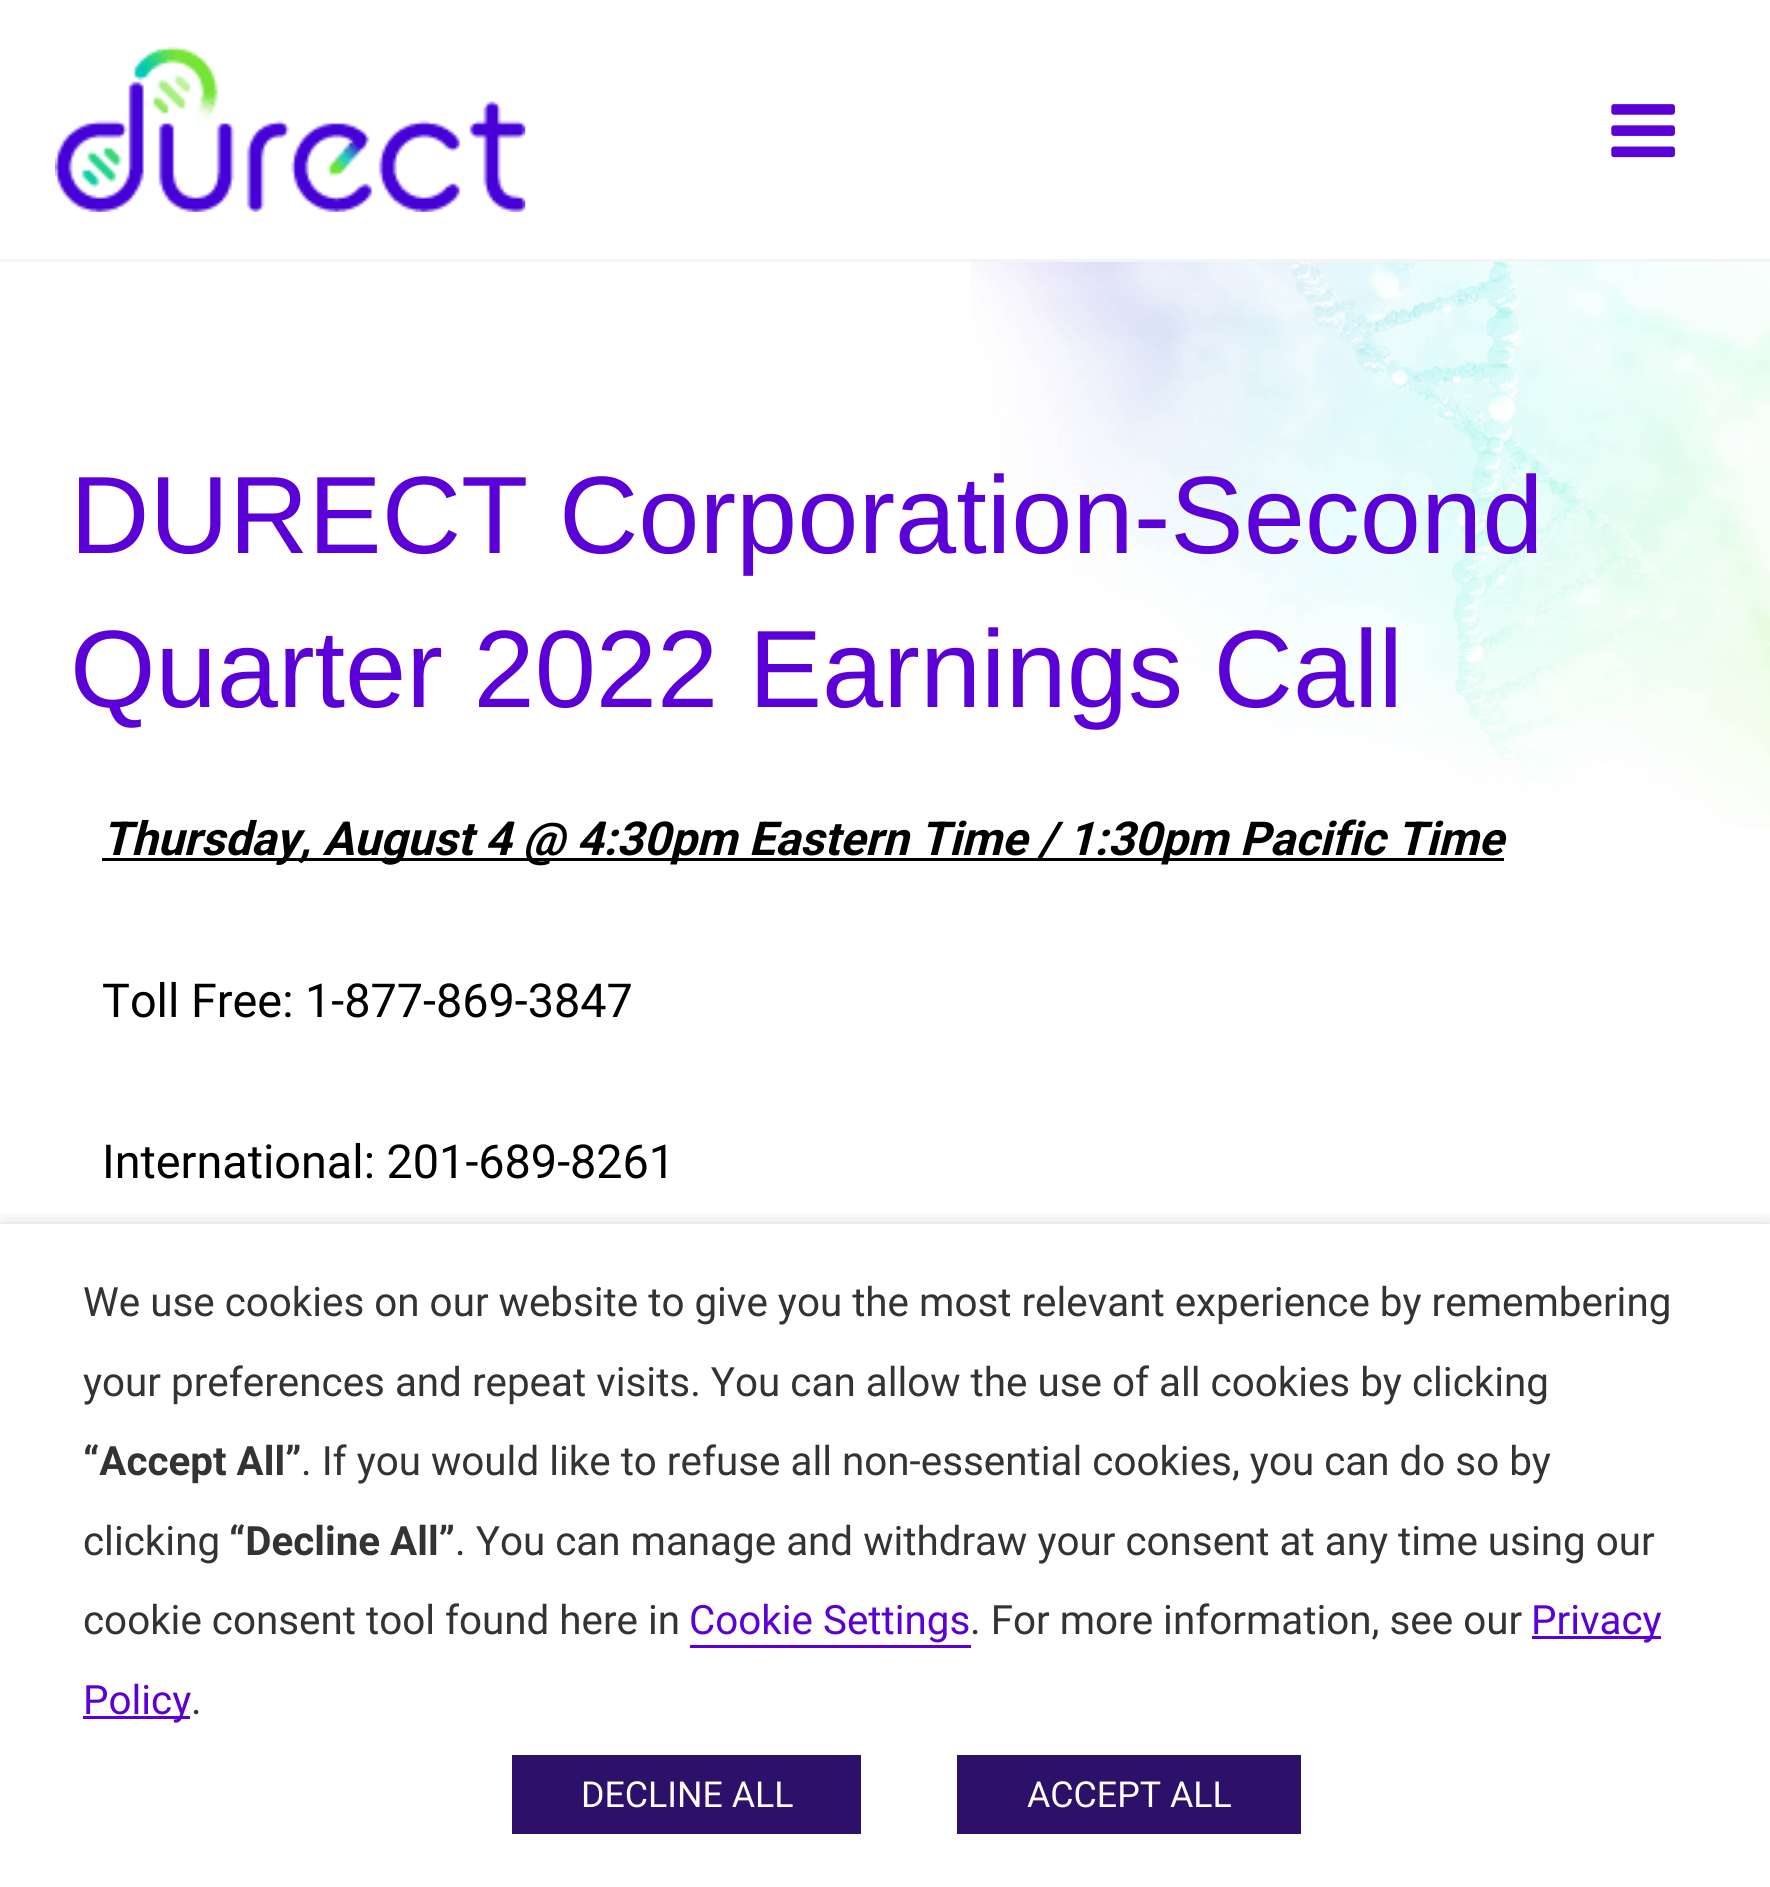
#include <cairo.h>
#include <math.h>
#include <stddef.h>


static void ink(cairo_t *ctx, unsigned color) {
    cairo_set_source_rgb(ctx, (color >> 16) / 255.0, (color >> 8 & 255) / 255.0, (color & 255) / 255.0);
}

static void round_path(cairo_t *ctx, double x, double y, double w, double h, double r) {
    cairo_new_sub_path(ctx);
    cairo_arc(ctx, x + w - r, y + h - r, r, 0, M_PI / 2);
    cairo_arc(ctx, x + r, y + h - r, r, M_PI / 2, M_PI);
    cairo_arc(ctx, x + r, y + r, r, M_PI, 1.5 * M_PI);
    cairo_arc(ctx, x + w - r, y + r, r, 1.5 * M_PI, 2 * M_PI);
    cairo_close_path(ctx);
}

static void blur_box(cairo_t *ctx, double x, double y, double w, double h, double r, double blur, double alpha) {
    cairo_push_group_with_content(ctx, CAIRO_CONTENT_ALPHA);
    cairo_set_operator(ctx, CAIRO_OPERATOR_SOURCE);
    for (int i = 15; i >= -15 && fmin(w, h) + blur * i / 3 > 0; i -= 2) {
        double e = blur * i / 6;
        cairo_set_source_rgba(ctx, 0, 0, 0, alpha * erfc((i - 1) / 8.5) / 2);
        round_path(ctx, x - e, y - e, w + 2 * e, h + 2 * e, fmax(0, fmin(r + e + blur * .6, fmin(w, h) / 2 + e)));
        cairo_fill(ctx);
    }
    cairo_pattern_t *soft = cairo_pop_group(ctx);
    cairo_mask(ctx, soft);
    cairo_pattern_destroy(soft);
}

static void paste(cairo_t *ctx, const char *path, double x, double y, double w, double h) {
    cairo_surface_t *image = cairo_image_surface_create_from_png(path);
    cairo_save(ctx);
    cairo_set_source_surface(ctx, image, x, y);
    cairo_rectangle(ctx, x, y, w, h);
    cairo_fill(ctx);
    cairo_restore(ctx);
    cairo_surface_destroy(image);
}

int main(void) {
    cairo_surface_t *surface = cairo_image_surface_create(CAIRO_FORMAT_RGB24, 1770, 1887);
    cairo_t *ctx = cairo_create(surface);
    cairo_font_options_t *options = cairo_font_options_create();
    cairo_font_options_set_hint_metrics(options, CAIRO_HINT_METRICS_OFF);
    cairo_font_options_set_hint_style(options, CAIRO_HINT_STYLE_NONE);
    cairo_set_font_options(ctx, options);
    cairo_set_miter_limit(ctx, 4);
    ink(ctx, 0xFFFFFF);
    cairo_paint(ctx);
    ink(ctx, 0xF2F5F7);
    cairo_rectangle(ctx, 0, 259, 1770, 3);
    cairo_fill(ctx);
    paste(ctx, "media/1.png", 55, 46, 471, 166);
    paste(ctx, "media/2.png", 1611, 104, 64, 54);
    paste(ctx, "media/3.png", 971, 262, 799, 567);
    cairo_select_font_face(ctx, "Liberation Sans", CAIRO_FONT_SLANT_NORMAL, CAIRO_FONT_WEIGHT_NORMAL);
    cairo_set_font_size(ctx, 110);
    ink(ctx, 0x5B00D7);
    cairo_move_to(ctx, 70, 553);
    cairo_show_text(ctx, "DURECT Corporation-Second");
    cairo_move_to(ctx, 70, 707);
    cairo_show_text(ctx, "Quarter 2022 Earnings Call");
    ink(ctx, 0x000000);
    cairo_rectangle(ctx, 102, 858, 1402, 3);
    cairo_fill(ctx);
    cairo_select_font_face(ctx, "Roboto", CAIRO_FONT_SLANT_ITALIC, CAIRO_FONT_WEIGHT_BOLD);
    cairo_set_font_size(ctx, 46.75);
    cairo_move_to(ctx, 102, 855);
    cairo_show_text(ctx, "Thursday, August 4 @ 4:30pm Eastern Time / 1:30pm Pacific Time");
    cairo_select_font_face(ctx, "Roboto", CAIRO_FONT_SLANT_NORMAL, CAIRO_FONT_WEIGHT_NORMAL);
    cairo_move_to(ctx, 102, 1017);
    cairo_show_text(ctx, "Toll Free: 1-877-869-3847");
    cairo_move_to(ctx, 102, 1178);
    cairo_show_text(ctx, "International: 201-689-8261");
    cairo_save(ctx);
    cairo_rectangle(ctx, 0, 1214, 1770, 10);
    cairo_clip(ctx);
    ink(ctx, 0x000000);
    blur_box(ctx, 0, 1238, 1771, 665, 0, 14, 0.5);
    cairo_restore(ctx);
    cairo_set_font_size(ctx, 40.35);
    ink(ctx, 0x333333);
    cairo_move_to(ctx, 83, 1316);
    cairo_show_text(ctx, "We use cookies on our website to give you the most relevant experience by remembering");
    cairo_move_to(ctx, 83, 1396);
    cairo_show_text(ctx, "your preferences and repeat visits. You can allow the use of all cookies by clicking");
    cairo_select_font_face(ctx, "Roboto", CAIRO_FONT_SLANT_NORMAL, CAIRO_FONT_WEIGHT_BOLD);
    cairo_move_to(ctx, 83, 1475);
    cairo_show_text(ctx, "“Accept All”");
    cairo_select_font_face(ctx, "Roboto", CAIRO_FONT_SLANT_NORMAL, CAIRO_FONT_WEIGHT_NORMAL);
    cairo_move_to(ctx, 301, 1475);
    cairo_show_text(ctx, ". If you would like to refuse all non-essential cookies, you can do so by");
    cairo_move_to(ctx, 83, 1555);
    cairo_show_text(ctx, "clicking");
    cairo_select_font_face(ctx, "Roboto", CAIRO_FONT_SLANT_NORMAL, CAIRO_FONT_WEIGHT_BOLD);
    cairo_move_to(ctx, 229, 1555);
    cairo_show_text(ctx, "“Decline All”");
    cairo_select_font_face(ctx, "Roboto", CAIRO_FONT_SLANT_NORMAL, CAIRO_FONT_WEIGHT_NORMAL);
    cairo_move_to(ctx, 455, 1555);
    cairo_show_text(ctx, ". You can manage and withdraw your consent at any time using our");
    cairo_move_to(ctx, 83, 1634);
    cairo_show_text(ctx, "cookie consent tool found here in");
    ink(ctx, 0x5B00D7);
    cairo_move_to(ctx, 689, 1634);
    cairo_show_text(ctx, "Cookie Settings");
    cairo_rectangle(ctx, 690, 1645, 281, 3);
    cairo_fill(ctx);
    ink(ctx, 0x333333);
    cairo_move_to(ctx, 970, 1634);
    cairo_show_text(ctx, ". For more information, see our");
    ink(ctx, 0x5B00D7);
    cairo_rectangle(ctx, 1532, 1636, 129, 3);
    cairo_fill(ctx);
    cairo_move_to(ctx, 1531, 1634);
    cairo_show_text(ctx, "Privacy");
    cairo_rectangle(ctx, 83, 1716, 107, 3);
    cairo_fill(ctx);
    cairo_move_to(ctx, 83, 1714);
    cairo_show_text(ctx, "Policy");
    ink(ctx, 0x333333);
    cairo_move_to(ctx, 191, 1714);
    cairo_show_text(ctx, ".");
    ink(ctx, 0x2D106A);
    cairo_rectangle(ctx, 512, 1755, 349, 79);
    cairo_fill(ctx);
    cairo_set_font_size(ctx, 35.75);
    ink(ctx, 0xFFFFFF);
    cairo_move_to(ctx, 581, 1807);
    cairo_show_text(ctx, "DECLINE ALL");
    ink(ctx, 0x2D106A);
    cairo_rectangle(ctx, 957, 1755, 344, 79);
    cairo_fill(ctx);
    ink(ctx, 0xFFFFFF);
    cairo_move_to(ctx, 1027, 1807);
    cairo_show_text(ctx, "ACCEPT ALL");
    cairo_surface_write_to_png(surface, "image.png");
    cairo_font_options_destroy(options);
    cairo_destroy(ctx);
    cairo_surface_destroy(surface);
    return 0;
}
